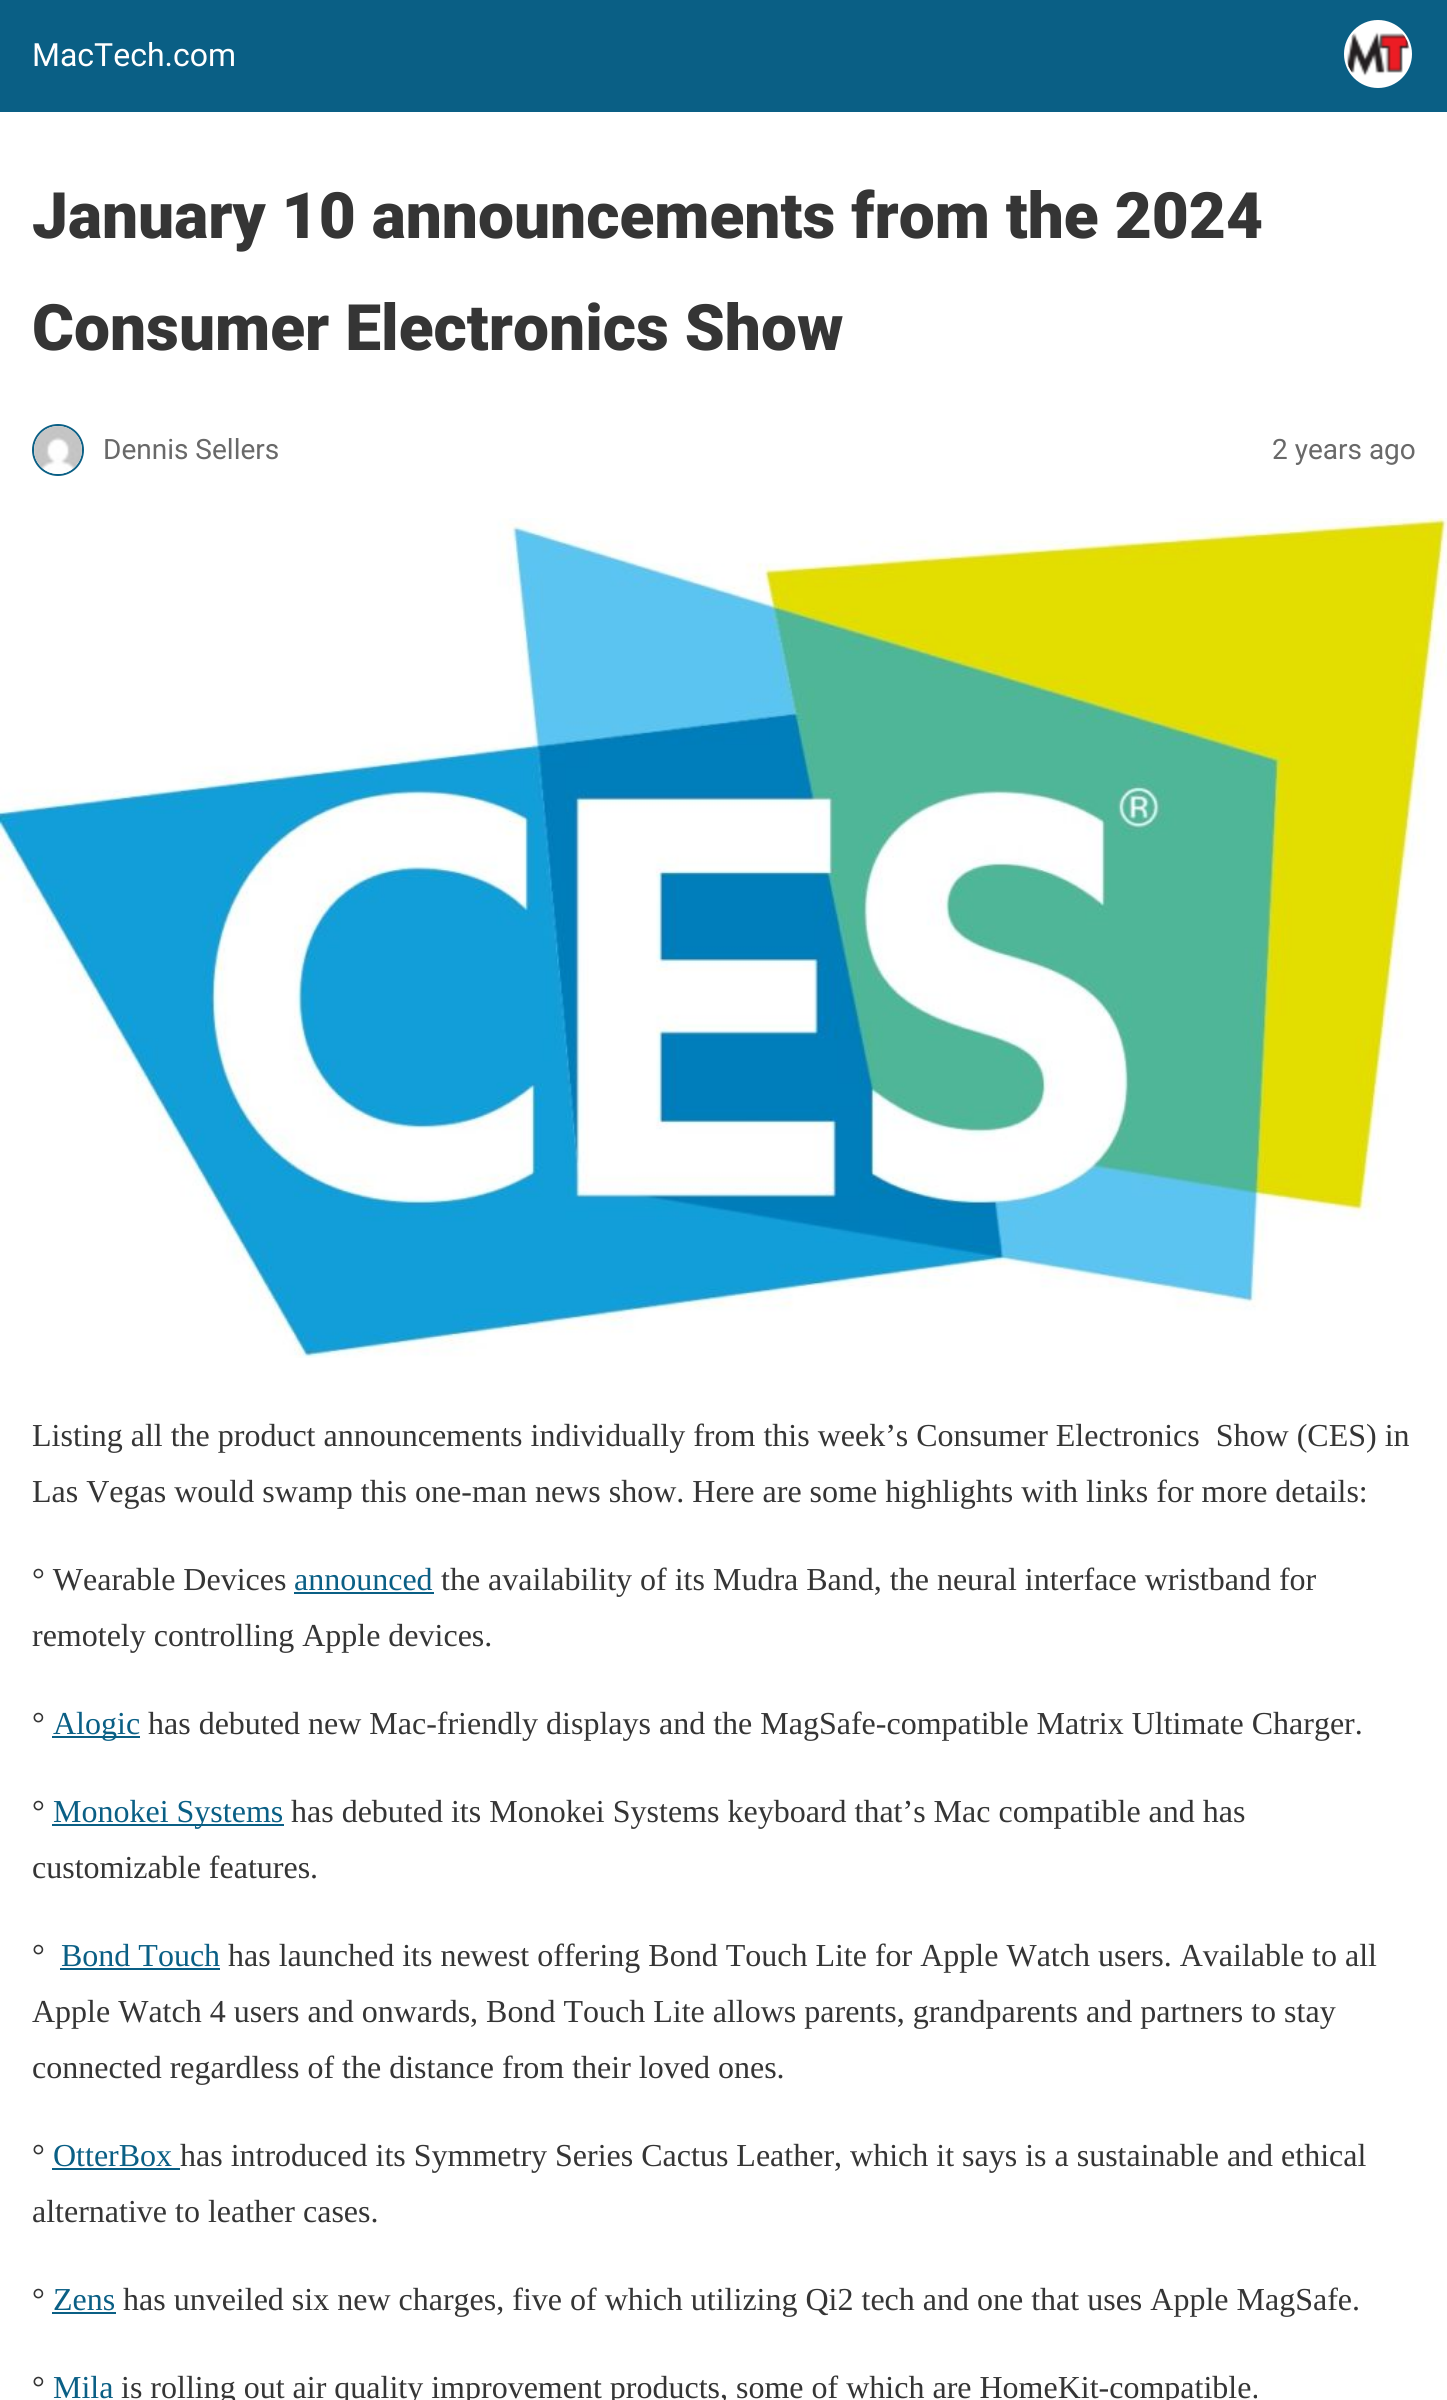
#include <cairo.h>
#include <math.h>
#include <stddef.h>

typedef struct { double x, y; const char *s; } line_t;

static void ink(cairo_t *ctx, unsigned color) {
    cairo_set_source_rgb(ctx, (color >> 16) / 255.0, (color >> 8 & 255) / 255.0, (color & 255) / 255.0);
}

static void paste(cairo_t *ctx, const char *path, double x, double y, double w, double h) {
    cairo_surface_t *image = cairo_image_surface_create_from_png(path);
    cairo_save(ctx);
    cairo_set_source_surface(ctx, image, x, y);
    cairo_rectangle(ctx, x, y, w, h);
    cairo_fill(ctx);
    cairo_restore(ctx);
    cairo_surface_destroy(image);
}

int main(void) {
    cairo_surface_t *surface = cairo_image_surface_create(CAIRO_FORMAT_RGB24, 1447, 2400);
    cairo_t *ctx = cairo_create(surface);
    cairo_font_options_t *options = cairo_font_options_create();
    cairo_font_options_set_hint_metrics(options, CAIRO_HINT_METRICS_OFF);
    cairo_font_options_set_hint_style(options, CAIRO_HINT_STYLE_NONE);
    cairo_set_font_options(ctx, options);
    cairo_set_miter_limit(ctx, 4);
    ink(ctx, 0xFFFFFF);
    cairo_paint(ctx);
    ink(ctx, 0x0A5F85);
    cairo_rectangle(ctx, 0, 0, 1447, 112);
    cairo_fill(ctx);
    cairo_select_font_face(ctx, "Roboto", CAIRO_FONT_SLANT_NORMAL, CAIRO_FONT_WEIGHT_NORMAL);
    cairo_set_font_size(ctx, 32);
    ink(ctx, 0xFFFFFF);
    cairo_move_to(ctx, 32, 66);
    cairo_show_text(ctx, "MacTech.com");
    cairo_new_path(ctx);
    cairo_arc(ctx, 1378, 54, 33, 0, 2 * M_PI);
    cairo_fill_preserve(ctx);
    cairo_stroke(ctx);
    paste(ctx, "media/1.png", 1347, 32, 63, 44);
    cairo_select_font_face(ctx, "Roboto Black", CAIRO_FONT_SLANT_NORMAL, CAIRO_FONT_WEIGHT_NORMAL);
    cairo_set_font_size(ctx, 64);
    ink(ctx, 0x353535);
    cairo_move_to(ctx, 32, 238);
    cairo_show_text(ctx, "January 10 announcements from the 2024");
    cairo_move_to(ctx, 32, 350);
    cairo_show_text(ctx, "Consumer Electronics Show");
    cairo_new_path(ctx);
    cairo_arc(ctx, 58, 450, 25, 0, 2 * M_PI);
    ink(ctx, 0x0A5F85);
    cairo_stroke(ctx);
    paste(ctx, "media/2.png", 34, 426, 48, 48);
    cairo_select_font_face(ctx, "Roboto", CAIRO_FONT_SLANT_NORMAL, CAIRO_FONT_WEIGHT_NORMAL);
    cairo_set_font_size(ctx, 28);
    ink(ctx, 0x696969);
    cairo_move_to(ctx, 103, 459);
    cairo_show_text(ctx, "Dennis Sellers");
    cairo_move_to(ctx, 1272, 459);
    cairo_show_text(ctx, "2 years ago");
    paste(ctx, "media/3.png", 0, 518, 1447, 840);
    cairo_select_font_face(ctx, "Liberation Serif", CAIRO_FONT_SLANT_NORMAL, CAIRO_FONT_WEIGHT_NORMAL);
    cairo_set_font_size(ctx, 32);
    ink(ctx, 0x353535);
    {
        static const line_t items[] = {
            {32, 1446, "Listing all the product announcements individually from this week’s Consumer Electronics  Show (CES) in"},
            {32, 1502, "Las Vegas would swamp this one-man news show. Here are some highlights with links for more details:"},
            {32, 1590, "° Wearable Devices"},
        };
        for (size_t i = 0; i < sizeof items / sizeof *items; i++) {
            cairo_move_to(ctx, items[i].x, items[i].y);
            cairo_show_text(ctx, items[i].s);
        }
    }
    ink(ctx, 0x0A5F85);
    cairo_move_to(ctx, 294, 1590);
    cairo_show_text(ctx, "announced");
    cairo_rectangle(ctx, 294, 1592, 140, 2);
    cairo_fill(ctx);
    ink(ctx, 0x353535);
    {
        static const line_t items[] = {
            {441, 1590, "the availability of its Mudra Band, the neural interface wristband for"},
            {32, 1646, "remotely controlling Apple devices."},
            {32, 1734, "°"},
        };
        for (size_t i = 0; i < sizeof items / sizeof *items; i++) {
            cairo_move_to(ctx, items[i].x, items[i].y);
            cairo_show_text(ctx, items[i].s);
        }
    }
    ink(ctx, 0x0A5F85);
    cairo_rectangle(ctx, 52, 1736, 88, 2);
    cairo_fill(ctx);
    cairo_move_to(ctx, 53, 1734);
    cairo_show_text(ctx, "Alogic");
    ink(ctx, 0x353535);
    cairo_move_to(ctx, 148, 1734);
    cairo_show_text(ctx, "has debuted new Mac-friendly displays and the MagSafe-compatible Matrix Ultimate Charger.");
    cairo_move_to(ctx, 32, 1822);
    cairo_show_text(ctx, "°");
    ink(ctx, 0x0A5F85);
    cairo_rectangle(ctx, 52, 1824, 232, 2);
    cairo_fill(ctx);
    cairo_move_to(ctx, 53, 1822);
    cairo_show_text(ctx, "Monokei Systems");
    ink(ctx, 0x353535);
    {
        static const line_t items[] = {
            {291, 1822, "has debuted its Monokei Systems keyboard that’s Mac compatible and has"},
            {32, 1878, "customizable features."},
            {32, 1966, "°"},
        };
        for (size_t i = 0; i < sizeof items / sizeof *items; i++) {
            cairo_move_to(ctx, items[i].x, items[i].y);
            cairo_show_text(ctx, items[i].s);
        }
    }
    ink(ctx, 0x0A5F85);
    cairo_move_to(ctx, 61, 1966);
    cairo_show_text(ctx, "Bond Touch");
    cairo_rectangle(ctx, 60, 1968, 160, 2);
    cairo_fill(ctx);
    ink(ctx, 0x353535);
    {
        static const line_t items[] = {
            {228, 1966, "has launched its newest offering Bond Touch Lite for Apple Watch users. Available to all"},
            {32, 2022, "Apple Watch 4 users and onwards, Bond Touch Lite allows parents, grandparents and partners to stay"},
            {32, 2078, "connected regardless of the distance from their loved ones."},
            {32, 2166, "°"},
        };
        for (size_t i = 0; i < sizeof items / sizeof *items; i++) {
            cairo_move_to(ctx, items[i].x, items[i].y);
            cairo_show_text(ctx, items[i].s);
        }
    }
    ink(ctx, 0x0A5F85);
    cairo_move_to(ctx, 53, 2166);
    cairo_show_text(ctx, "OtterBox");
    cairo_rectangle(ctx, 52, 2168, 128, 2);
    cairo_fill(ctx);
    ink(ctx, 0x353535);
    {
        static const line_t items[] = {
            {180, 2166, "has introduced its Symmetry Series Cactus Leather, which it says is a sustainable and ethical"},
            {32, 2222, "alternative to leather cases."},
            {32, 2310, "°"},
        };
        for (size_t i = 0; i < sizeof items / sizeof *items; i++) {
            cairo_move_to(ctx, items[i].x, items[i].y);
            cairo_show_text(ctx, items[i].s);
        }
    }
    ink(ctx, 0x0A5F85);
    cairo_move_to(ctx, 53, 2310);
    cairo_show_text(ctx, "Zens");
    cairo_rectangle(ctx, 52, 2312, 64, 2);
    cairo_fill(ctx);
    ink(ctx, 0x353535);
    cairo_move_to(ctx, 123, 2310);
    cairo_show_text(ctx, "has unveiled six new charges, five of which utilizing Qi2 tech and one that uses Apple MagSafe.");
    cairo_move_to(ctx, 32, 2398);
    cairo_show_text(ctx, "°");
    ink(ctx, 0x0A5F85);
    cairo_move_to(ctx, 53, 2398);
    cairo_show_text(ctx, "Mila");
    ink(ctx, 0x353535);
    cairo_move_to(ctx, 121, 2398);
    cairo_show_text(ctx, "is rolling out air quality improvement products, some of which are HomeKit-compatible.");
    cairo_surface_write_to_png(surface, "image.png");
    cairo_font_options_destroy(options);
    cairo_destroy(ctx);
    cairo_surface_destroy(surface);
    return 0;
}
